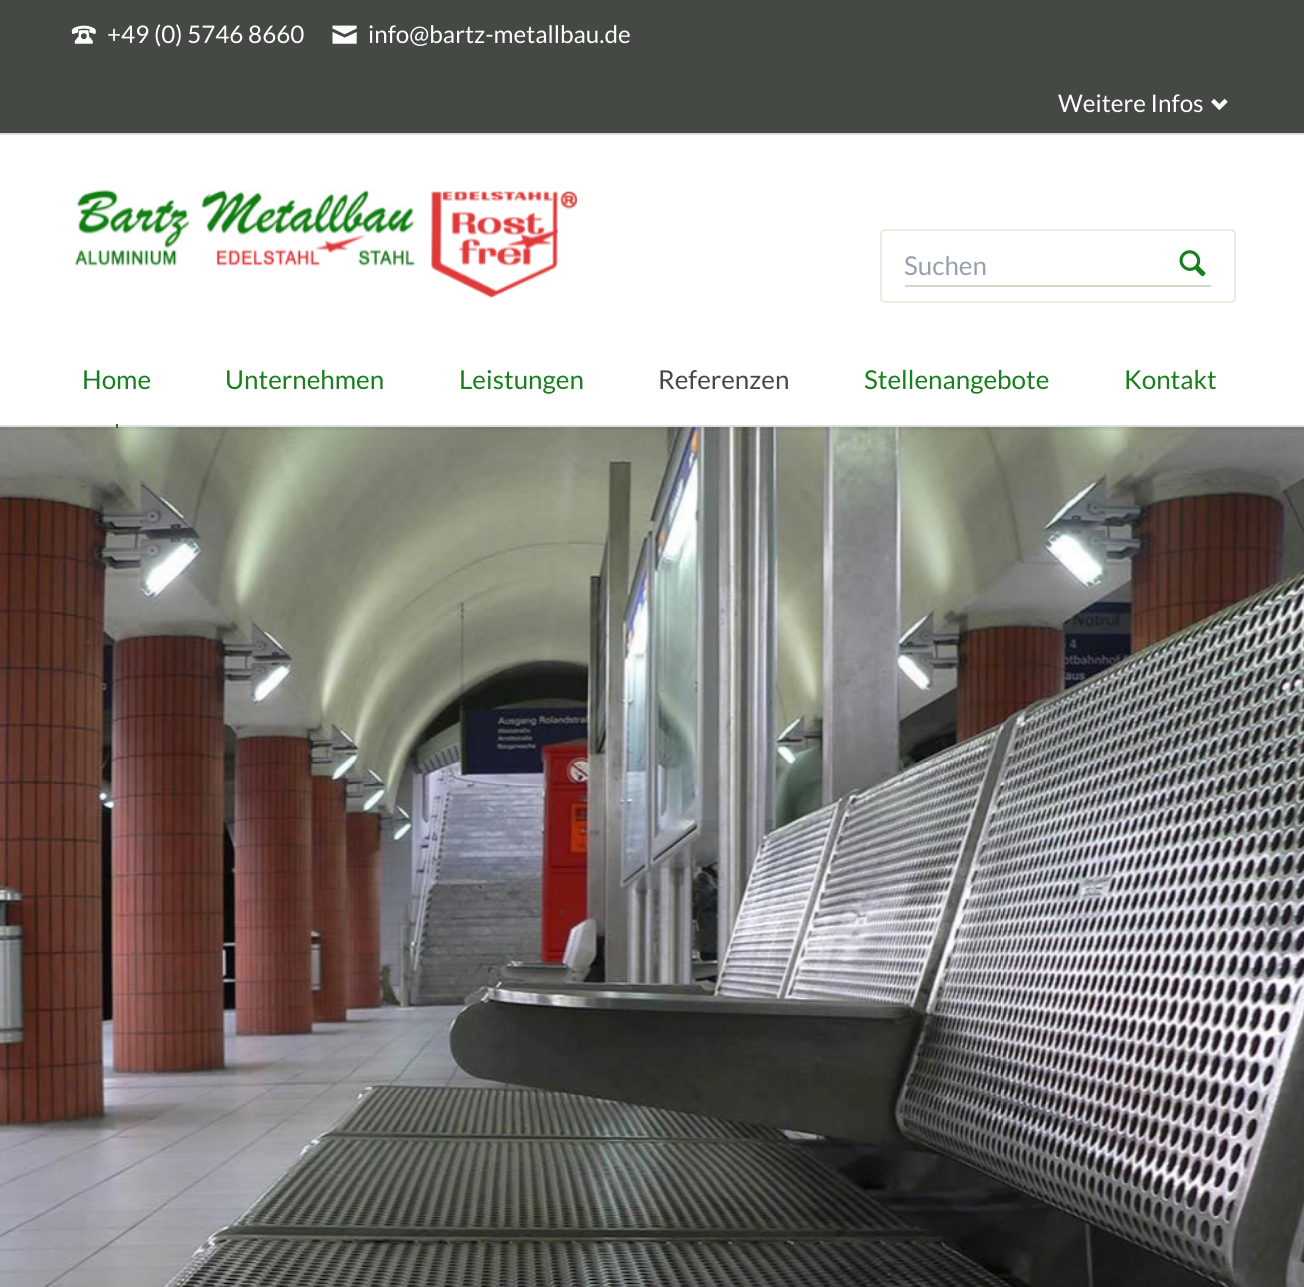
#include <cairo.h>
#include <math.h>
#include <stddef.h>


static void ink(cairo_t *ctx, unsigned color) {
    cairo_set_source_rgb(ctx, (color >> 16) / 255.0, (color >> 8 & 255) / 255.0, (color & 255) / 255.0);
}

static void round_path(cairo_t *ctx, double x, double y, double w, double h, double r) {
    cairo_new_sub_path(ctx);
    cairo_arc(ctx, x + w - r, y + h - r, r, 0, M_PI / 2);
    cairo_arc(ctx, x + r, y + h - r, r, M_PI / 2, M_PI);
    cairo_arc(ctx, x + r, y + r, r, M_PI, 1.5 * M_PI);
    cairo_arc(ctx, x + w - r, y + r, r, 1.5 * M_PI, 2 * M_PI);
    cairo_close_path(ctx);
}

static void blur_box(cairo_t *ctx, double x, double y, double w, double h, double r, double blur, double alpha) {
    cairo_push_group_with_content(ctx, CAIRO_CONTENT_ALPHA);
    cairo_set_operator(ctx, CAIRO_OPERATOR_SOURCE);
    for (int i = 15; i >= -15 && fmin(w, h) + blur * i / 3 > 0; i -= 2) {
        double e = blur * i / 6;
        cairo_set_source_rgba(ctx, 0, 0, 0, alpha * erfc((i - 1) / 8.5) / 2);
        round_path(ctx, x - e, y - e, w + 2 * e, h + 2 * e, fmax(0, fmin(r + e + blur * .6, fmin(w, h) / 2 + e)));
        cairo_fill(ctx);
    }
    cairo_pattern_t *soft = cairo_pop_group(ctx);
    cairo_mask(ctx, soft);
    cairo_pattern_destroy(soft);
}

static void paste(cairo_t *ctx, const char *path, double x, double y, double w, double h) {
    cairo_surface_t *image = cairo_image_surface_create_from_png(path);
    cairo_save(ctx);
    cairo_set_source_surface(ctx, image, x, y);
    cairo_rectangle(ctx, x, y, w, h);
    cairo_fill(ctx);
    cairo_restore(ctx);
    cairo_surface_destroy(image);
}

int main(void) {
    cairo_surface_t *surface = cairo_image_surface_create(CAIRO_FORMAT_RGB24, 1304, 1287);
    cairo_t *ctx = cairo_create(surface);
    cairo_font_options_t *options = cairo_font_options_create();
    cairo_font_options_set_hint_metrics(options, CAIRO_HINT_METRICS_OFF);
    cairo_font_options_set_hint_style(options, CAIRO_HINT_STYLE_NONE);
    cairo_set_font_options(ctx, options);
    cairo_set_miter_limit(ctx, 4);
    ink(ctx, 0xFFFFFF);
    cairo_paint(ctx);
    ink(ctx, 0x444943);
    cairo_rectangle(ctx, 0, 0, 1304, 133);
    cairo_fill(ctx);
    ink(ctx, 0xDEDEDE);
    cairo_rectangle(ctx, 0, 133, 1304, 2);
    cairo_fill(ctx);
    paste(ctx, "media/1.png", 71, 25, 25, 19);
    cairo_select_font_face(ctx, "Lato", CAIRO_FONT_SLANT_NORMAL, CAIRO_FONT_WEIGHT_NORMAL);
    cairo_set_font_size(ctx, 24.25);
    ink(ctx, 0xFFFFFF);
    cairo_move_to(ctx, 107, 43);
    cairo_show_text(ctx, "+49 (0) 5746 8660");
    paste(ctx, "media/2.png", 332, 25, 25, 19);
    cairo_move_to(ctx, 368, 43);
    cairo_show_text(ctx, "info@bartz-metallbau.de");
    cairo_move_to(ctx, 1058, 112);
    cairo_show_text(ctx, "Weitere Infos");
    paste(ctx, "media/3.png", 1211, 98, 17, 13);
    paste(ctx, "media/6.png", 0, 427, 1304, 860);
    cairo_save(ctx);
    cairo_rectangle(ctx, 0, 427, 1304, 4);
    cairo_clip(ctx);
    ink(ctx, 0x000000);
    blur_box(ctx, 0, 137, 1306, 292, 0, 2, 0.1);
    cairo_restore(ctx);
    ink(ctx, 0xDEDEDE);
    cairo_rectangle(ctx, 0, 425, 1304, 2);
    cairo_fill(ctx);
    paste(ctx, "media/4.png", 75, 189, 503, 109);
    round_path(ctx, 881, 230, 354, 72, 4);
    ink(ctx, 0xE8EDDE);
    cairo_stroke(ctx);
    ink(ctx, 0xD4DAC8);
    cairo_rectangle(ctx, 905, 285, 306, 2);
    cairo_fill(ctx);
    cairo_set_font_size(ctx, 26);
    ink(ctx, 0x98A0AB);
    cairo_move_to(ctx, 904, 275);
    cairo_show_text(ctx, "Suchen");
    paste(ctx, "media/5.png", 1179, 250, 27, 27);
    ink(ctx, 0x197E1D);
    cairo_move_to(ctx, 82, 389);
    cairo_show_text(ctx, "Home");
    cairo_rectangle(ctx, 116, 424, 2, 4);
    cairo_fill(ctx);
    cairo_move_to(ctx, 225, 389);
    cairo_show_text(ctx, "Unternehmen");
    cairo_move_to(ctx, 459, 389);
    cairo_show_text(ctx, "Leistungen");
    ink(ctx, 0x444943);
    cairo_move_to(ctx, 658, 389);
    cairo_show_text(ctx, "Referenzen");
    ink(ctx, 0x197E1D);
    cairo_move_to(ctx, 864, 389);
    cairo_show_text(ctx, "Stellenangebote");
    cairo_move_to(ctx, 1124, 389);
    cairo_show_text(ctx, "Kontakt");
    cairo_surface_write_to_png(surface, "image.png");
    cairo_font_options_destroy(options);
    cairo_destroy(ctx);
    cairo_surface_destroy(surface);
    return 0;
}
